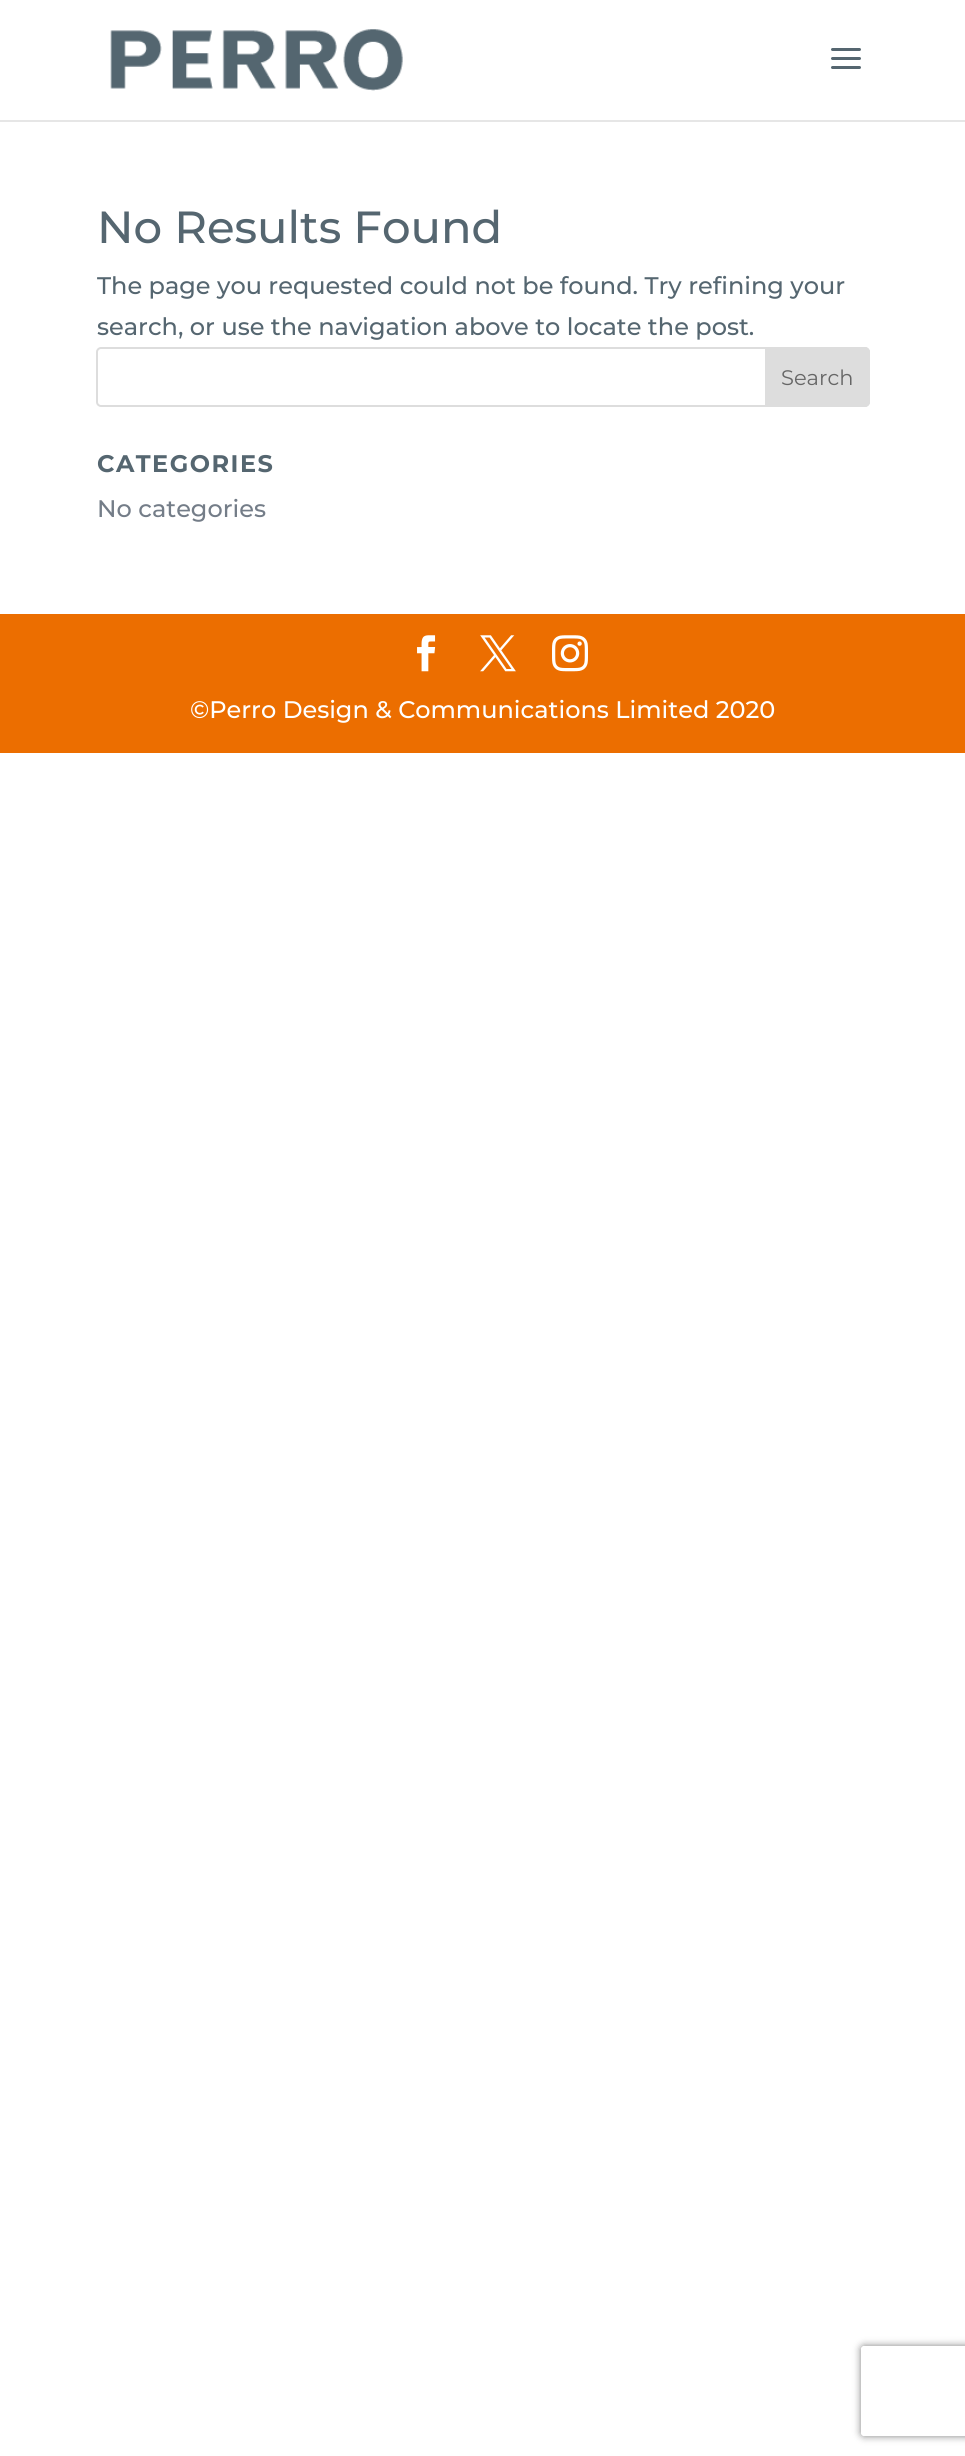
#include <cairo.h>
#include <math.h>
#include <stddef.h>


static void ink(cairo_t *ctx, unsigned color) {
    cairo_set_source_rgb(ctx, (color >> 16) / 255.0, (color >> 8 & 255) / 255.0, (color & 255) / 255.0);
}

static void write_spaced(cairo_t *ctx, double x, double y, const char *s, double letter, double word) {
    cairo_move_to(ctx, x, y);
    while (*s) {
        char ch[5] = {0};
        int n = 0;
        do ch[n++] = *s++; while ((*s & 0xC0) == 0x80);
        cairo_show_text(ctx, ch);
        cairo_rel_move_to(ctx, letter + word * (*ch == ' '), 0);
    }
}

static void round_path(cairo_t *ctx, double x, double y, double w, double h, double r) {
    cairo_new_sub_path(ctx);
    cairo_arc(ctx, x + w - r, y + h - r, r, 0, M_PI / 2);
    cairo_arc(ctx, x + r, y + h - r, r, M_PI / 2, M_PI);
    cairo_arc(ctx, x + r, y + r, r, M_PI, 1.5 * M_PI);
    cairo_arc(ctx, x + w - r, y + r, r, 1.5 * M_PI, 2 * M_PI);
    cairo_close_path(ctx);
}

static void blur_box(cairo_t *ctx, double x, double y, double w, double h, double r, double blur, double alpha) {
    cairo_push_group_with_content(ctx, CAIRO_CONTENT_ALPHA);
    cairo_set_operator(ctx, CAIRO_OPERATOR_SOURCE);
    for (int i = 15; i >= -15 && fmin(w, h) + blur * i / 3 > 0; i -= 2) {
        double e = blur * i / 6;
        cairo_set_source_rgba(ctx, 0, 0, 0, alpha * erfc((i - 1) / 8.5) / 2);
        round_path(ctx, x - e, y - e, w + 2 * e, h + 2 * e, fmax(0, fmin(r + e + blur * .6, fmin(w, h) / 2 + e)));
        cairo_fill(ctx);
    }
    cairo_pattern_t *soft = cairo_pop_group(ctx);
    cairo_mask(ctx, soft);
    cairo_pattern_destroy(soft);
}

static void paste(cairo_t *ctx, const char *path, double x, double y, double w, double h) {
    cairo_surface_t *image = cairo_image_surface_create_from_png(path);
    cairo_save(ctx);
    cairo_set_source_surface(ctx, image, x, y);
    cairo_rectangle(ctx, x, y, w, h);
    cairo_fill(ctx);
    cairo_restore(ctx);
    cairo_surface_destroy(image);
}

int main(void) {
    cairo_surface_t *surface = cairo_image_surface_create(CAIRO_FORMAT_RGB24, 965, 2456);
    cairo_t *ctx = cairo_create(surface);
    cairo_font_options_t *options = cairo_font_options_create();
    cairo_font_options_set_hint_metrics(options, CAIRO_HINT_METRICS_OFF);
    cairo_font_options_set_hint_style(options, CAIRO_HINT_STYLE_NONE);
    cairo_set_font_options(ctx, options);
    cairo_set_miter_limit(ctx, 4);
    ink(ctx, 0xFFFFFF);
    cairo_paint(ctx);
    ink(ctx, 0xE6E6E6);
    cairo_rectangle(ctx, 0, 120, 965, 2);
    cairo_fill(ctx);
    paste(ctx, "media/1.png", 110, 29, 293, 62);
    paste(ctx, "media/2.png", 831, 48, 30, 21);
    cairo_select_font_face(ctx, "Montserrat Medium", CAIRO_FONT_SLANT_NORMAL, CAIRO_FONT_WEIGHT_NORMAL);
    cairo_set_font_size(ctx, 45);
    ink(ctx, 0x556670);
    cairo_move_to(ctx, 97, 243);
    cairo_show_text(ctx, "No Results Found");
    cairo_set_font_size(ctx, 24);
    cairo_move_to(ctx, 97, 294);
    cairo_show_text(ctx, "The page you requested could not be found. Try refining your");
    cairo_move_to(ctx, 97, 335);
    cairo_show_text(ctx, "search, or use the navigation above to locate the post.");
    round_path(ctx, 97, 348, 772, 58, 4);
    ink(ctx, 0xDDDDDD);
    cairo_stroke(ctx);
    cairo_new_path(ctx);
    cairo_move_to(ctx, 766, 348);
    cairo_line_to(ctx, 865, 348);
    cairo_curve_to(ctx, 867, 348, 869, 350, 869, 352);
    cairo_line_to(ctx, 869, 402);
    cairo_curve_to(ctx, 869, 404, 867, 406, 865, 406);
    cairo_line_to(ctx, 766, 406);
    cairo_close_path(ctx);
    cairo_fill_preserve(ctx);
    cairo_stroke(ctx);
    cairo_select_font_face(ctx, "Montserrat", CAIRO_FONT_SLANT_NORMAL, CAIRO_FONT_WEIGHT_NORMAL);
    cairo_set_font_size(ctx, 21);
    ink(ctx, 0x666666);
    cairo_move_to(ctx, 781, 385);
    cairo_show_text(ctx, "Search");
    cairo_select_font_face(ctx, "Montserrat", CAIRO_FONT_SLANT_NORMAL, CAIRO_FONT_WEIGHT_BOLD);
    cairo_set_font_size(ctx, 24);
    ink(ctx, 0x556670);
    write_spaced(ctx, 97, 472, "CATEGORIES", 1.5, 0);
    cairo_select_font_face(ctx, "Montserrat Medium", CAIRO_FONT_SLANT_NORMAL, CAIRO_FONT_WEIGHT_NORMAL);
    ink(ctx, 0x747D88);
    cairo_move_to(ctx, 97, 517);
    cairo_show_text(ctx, "No categories");
    ink(ctx, 0xEC6E00);
    cairo_rectangle(ctx, 0, 614, 965, 139);
    cairo_fill(ctx);
    paste(ctx, "media/3.png", 417, 635, 19, 37);
    paste(ctx, "media/4.png", 480, 635, 36, 37);
    paste(ctx, "media/5.png", 552, 635, 36, 37);
    ink(ctx, 0xFFFFFF);
    cairo_move_to(ctx, 190, 718);
    cairo_show_text(ctx, "©Perro Design & Communications Limited 2020");
    cairo_save(ctx);
    cairo_set_fill_rule(ctx, CAIRO_FILL_RULE_EVEN_ODD);
    cairo_new_path(ctx);
    cairo_move_to(ctx, 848, 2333);
    cairo_line_to(ctx, 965, 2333);
    cairo_line_to(ctx, 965, 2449);
    cairo_line_to(ctx, 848, 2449);
    cairo_close_path(ctx);
    cairo_move_to(ctx, 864, 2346);
    cairo_line_to(ctx, 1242, 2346);
    cairo_curve_to(ctx, 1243.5, 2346, 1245, 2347.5, 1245, 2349);
    cairo_line_to(ctx, 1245, 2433);
    cairo_curve_to(ctx, 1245, 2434.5, 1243.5, 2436, 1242, 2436);
    cairo_line_to(ctx, 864, 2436);
    cairo_curve_to(ctx, 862.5, 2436, 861, 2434.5, 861, 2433);
    cairo_line_to(ctx, 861, 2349);
    cairo_curve_to(ctx, 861, 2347.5, 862.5, 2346, 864, 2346);
    cairo_close_path(ctx);
    cairo_clip(ctx);
    ink(ctx, 0x808080);
    blur_box(ctx, 861, 2346, 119, 90, 3, 4, 1);
    cairo_restore(ctx);
    cairo_surface_write_to_png(surface, "image.png");
    cairo_font_options_destroy(options);
    cairo_destroy(ctx);
    cairo_surface_destroy(surface);
    return 0;
}
